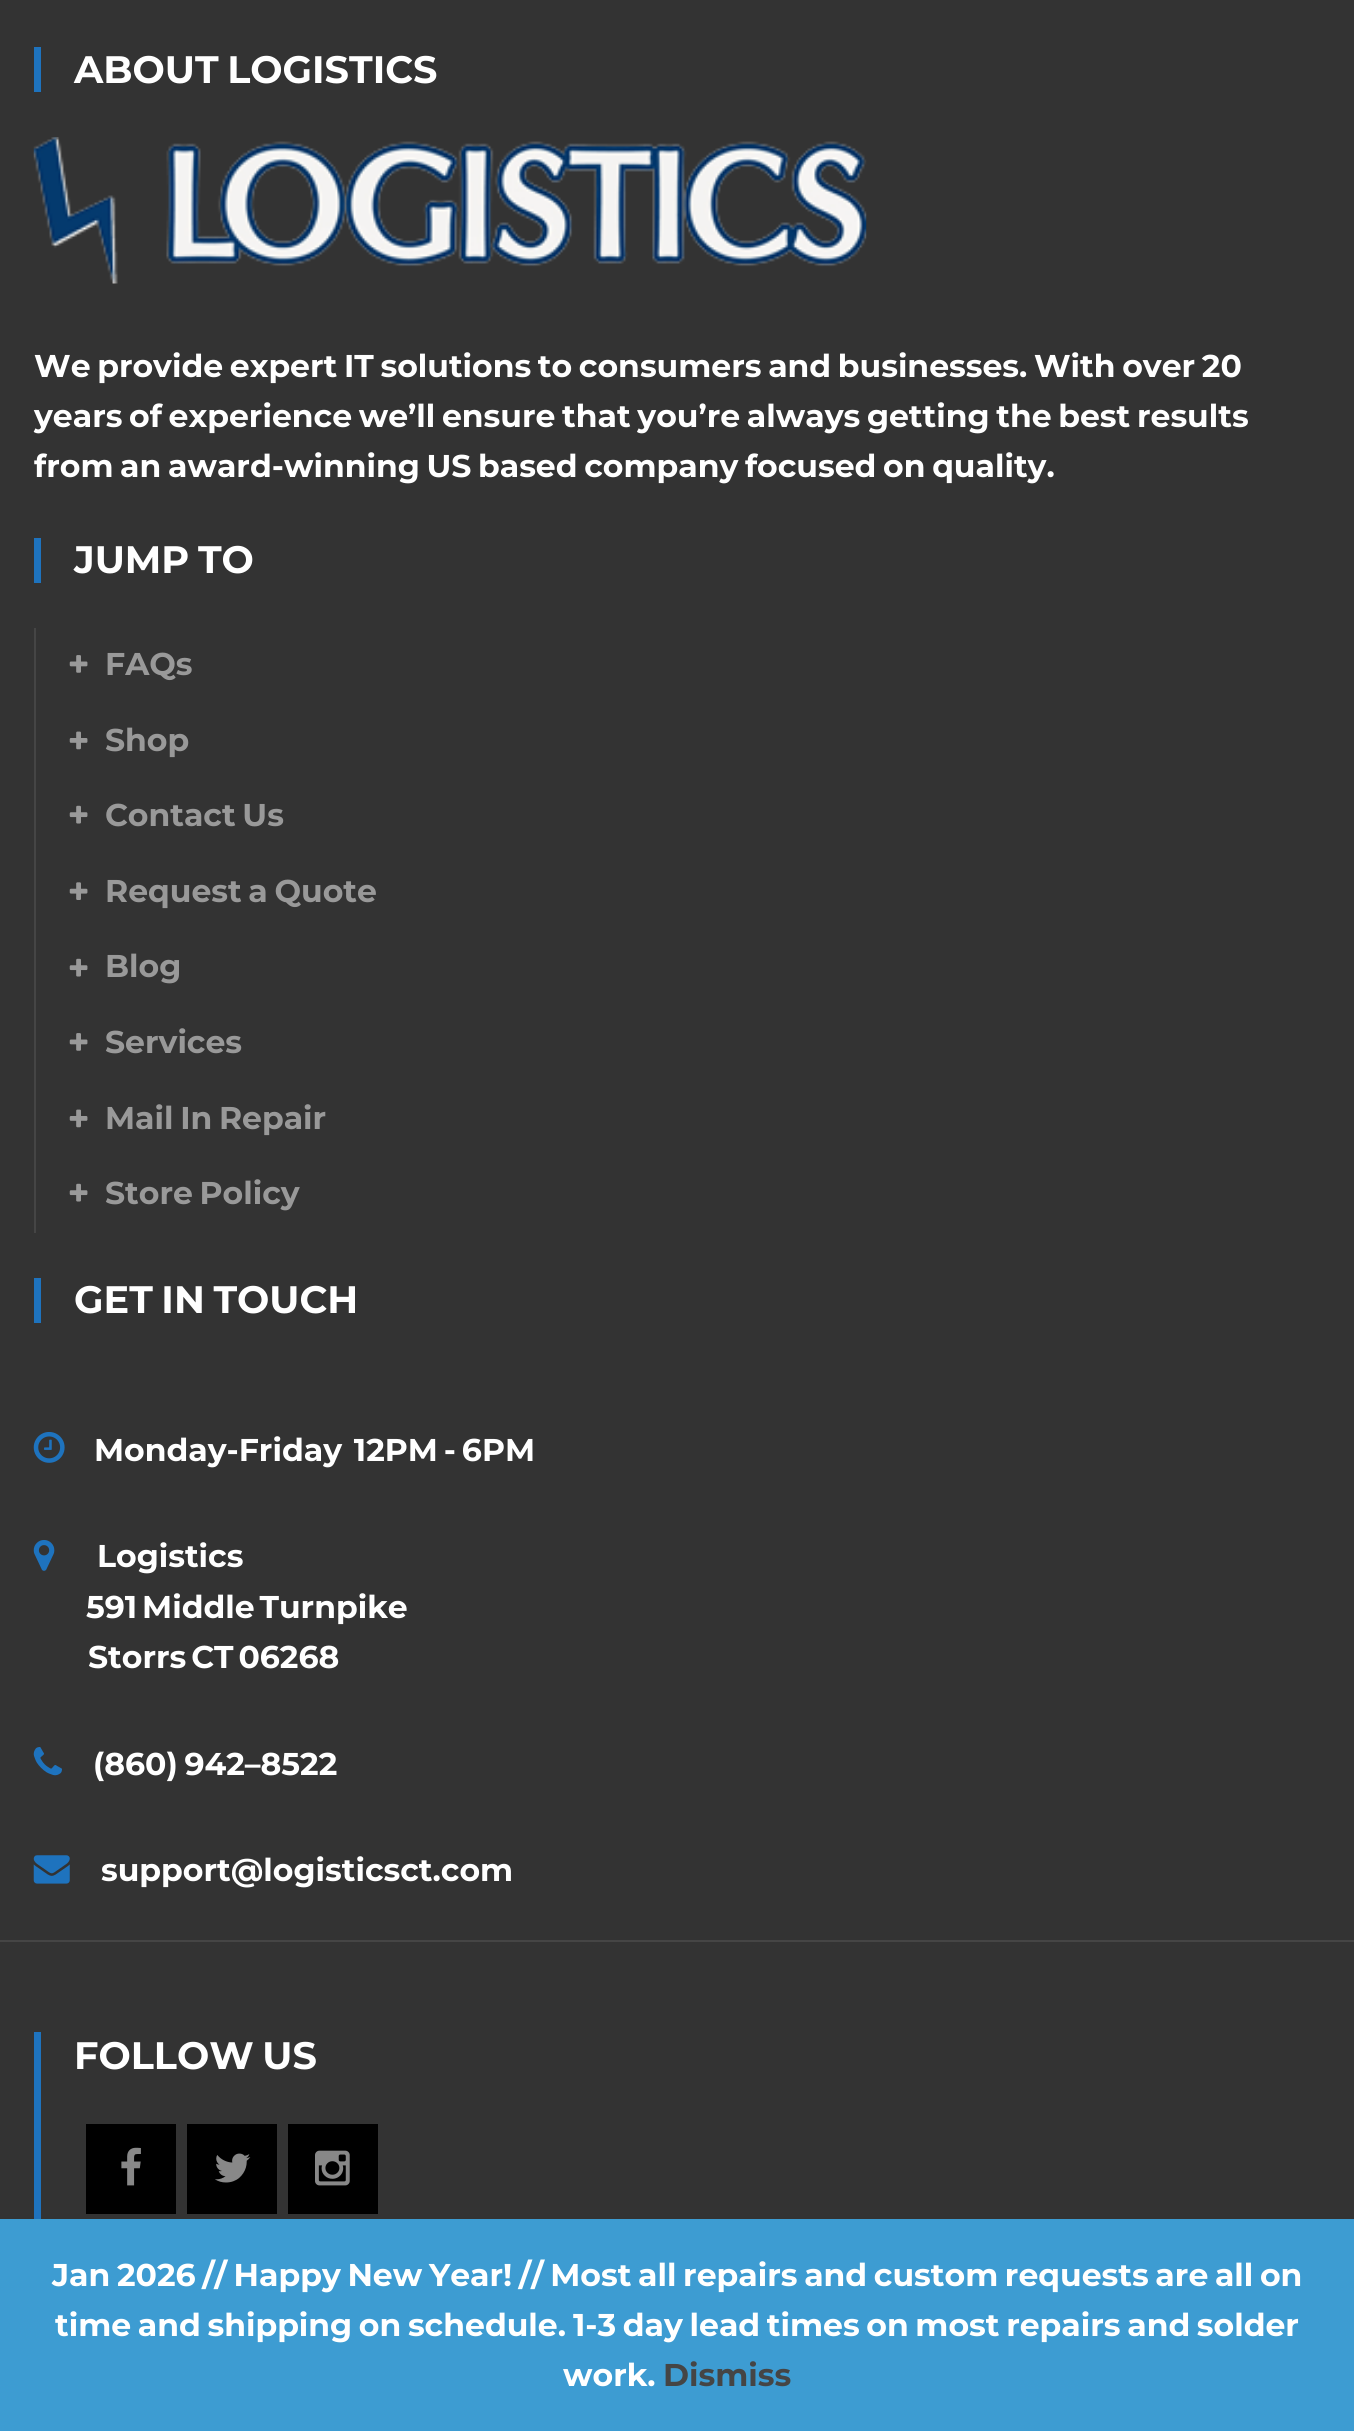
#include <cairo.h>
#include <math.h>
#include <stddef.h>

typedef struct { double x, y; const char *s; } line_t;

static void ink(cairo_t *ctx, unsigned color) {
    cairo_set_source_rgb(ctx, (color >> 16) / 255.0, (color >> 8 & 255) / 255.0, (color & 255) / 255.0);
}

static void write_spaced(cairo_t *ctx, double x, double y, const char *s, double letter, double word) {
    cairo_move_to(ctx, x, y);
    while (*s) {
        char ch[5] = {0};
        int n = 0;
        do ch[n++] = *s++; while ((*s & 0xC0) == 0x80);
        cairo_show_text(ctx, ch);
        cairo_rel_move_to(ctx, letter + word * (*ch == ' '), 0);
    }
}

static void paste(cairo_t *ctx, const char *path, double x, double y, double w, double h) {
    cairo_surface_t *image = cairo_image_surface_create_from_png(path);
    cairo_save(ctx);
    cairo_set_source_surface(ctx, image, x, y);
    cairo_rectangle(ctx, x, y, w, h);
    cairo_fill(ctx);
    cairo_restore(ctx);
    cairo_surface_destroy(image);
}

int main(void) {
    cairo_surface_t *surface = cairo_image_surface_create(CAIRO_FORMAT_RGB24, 1354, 2431);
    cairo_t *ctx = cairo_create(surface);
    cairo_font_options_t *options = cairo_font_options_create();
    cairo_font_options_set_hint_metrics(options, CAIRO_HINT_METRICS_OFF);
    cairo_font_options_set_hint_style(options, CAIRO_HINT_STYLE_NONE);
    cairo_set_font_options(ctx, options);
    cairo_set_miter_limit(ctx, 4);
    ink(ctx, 0x333333);
    cairo_paint(ctx);
    ink(ctx, 0x1E73BE);
    cairo_rectangle(ctx, 34, 47, 7, 45);
    cairo_fill(ctx);
    cairo_select_font_face(ctx, "Montserrat", CAIRO_FONT_SLANT_NORMAL, CAIRO_FONT_WEIGHT_BOLD);
    cairo_set_font_size(ctx, 38.25);
    ink(ctx, 0xFFFFFF);
    write_spaced(ctx, 74, 83, "ABOUT LOGISTICS", 0, -2.25);
    paste(ctx, "media/1.png", 33, 137, 834, 147);
    cairo_set_font_size(ctx, 31.5);
    {
        static const line_t items[] = {
            {34, 377, "We provide expert IT solutions to consumers and businesses. With over 20"},
            {34, 427, "years of experience we’ll ensure that you’re always getting the best results"},
            {34, 477, "from an award-winning US based company focused on quality."},
        };
        for (size_t i = 0; i < sizeof items / sizeof *items; i++) {
            write_spaced(ctx, items[i].x, items[i].y, items[i].s, 0, -2.25);
        }
    }
    ink(ctx, 0x1E73BE);
    cairo_rectangle(ctx, 34, 538, 7, 45);
    cairo_fill(ctx);
    cairo_set_font_size(ctx, 38.25);
    ink(ctx, 0xFFFFFF);
    write_spaced(ctx, 74, 573, "JUMP TO", 0, -2.25);
    ink(ctx, 0x454545);
    cairo_rectangle(ctx, 34, 628, 2, 605);
    cairo_fill(ctx);
    paste(ctx, "media/2.png", 69, 655, 19, 18);
    cairo_set_font_size(ctx, 31.5);
    ink(ctx, 0x999999);
    cairo_move_to(ctx, 105, 675);
    cairo_show_text(ctx, "FAQs");
    paste(ctx, "media/3.png", 69, 731, 19, 19);
    cairo_move_to(ctx, 105, 751);
    cairo_show_text(ctx, "Shop");
    paste(ctx, "media/4.png", 69, 805, 19, 19);
    write_spaced(ctx, 105, 826, "Contact Us", 0, -2.25);
    paste(ctx, "media/5.png", 69, 882, 19, 18);
    write_spaced(ctx, 105, 902, "Request a Quote", 0, -2.25);
    paste(ctx, "media/4.png", 69, 958, 19, 19);
    cairo_move_to(ctx, 105, 977);
    cairo_show_text(ctx, "Blog");
    paste(ctx, "media/2.png", 69, 1033, 19, 18);
    cairo_move_to(ctx, 105, 1053);
    cairo_show_text(ctx, "Services");
    paste(ctx, "media/3.png", 69, 1109, 19, 19);
    write_spaced(ctx, 105, 1129, "Mail In Repair", 0, -2.25);
    paste(ctx, "media/4.png", 69, 1183, 19, 19);
    write_spaced(ctx, 105, 1204, "Store Policy", 0, -2.25);
    ink(ctx, 0x1E73BE);
    cairo_rectangle(ctx, 34, 1278, 7, 45);
    cairo_fill(ctx);
    cairo_set_font_size(ctx, 38.25);
    ink(ctx, 0xFFFFFF);
    write_spaced(ctx, 74, 1313, "GET IN TOUCH", 0, -2.25);
    paste(ctx, "media/6.png", 33, 1432, 32, 31);
    cairo_set_font_size(ctx, 31.5);
    write_spaced(ctx, 94, 1461, "Monday-Friday  12PM - 6PM", 0, -3);
    paste(ctx, "media/7.png", 33, 1540, 22, 31);
    cairo_move_to(ctx, 97, 1567);
    cairo_show_text(ctx, "Logistics");
    write_spaced(ctx, 86, 1618, "591 Middle Turnpike", 0, -4);
    write_spaced(ctx, 88, 1668, "Storrs CT 06268", 0, -4);
    paste(ctx, "media/8.png", 33, 1747, 29, 29);
    write_spaced(ctx, 93, 1775, "(860) 942–8522", 0, -2.25);
    paste(ctx, "media/9.png", 33, 1855, 37, 29);
    cairo_move_to(ctx, 101, 1881);
    cairo_show_text(ctx, "support@logisticsct.com");
    ink(ctx, 0x454545);
    cairo_rectangle(ctx, 0, 1940, 1354, 2);
    cairo_fill(ctx);
    ink(ctx, 0x1E73BE);
    cairo_rectangle(ctx, 34, 2032, 7, 187);
    cairo_fill(ctx);
    cairo_set_font_size(ctx, 38.25);
    ink(ctx, 0xFFFFFF);
    write_spaced(ctx, 74, 2069, "FOLLOW US", 0, -2.25);
    ink(ctx, 0x000000);
    cairo_rectangle(ctx, 86, 2124, 90, 90);
    cairo_fill(ctx);
    paste(ctx, "media/10.png", 121, 2147, 20, 39);
    cairo_rectangle(ctx, 187, 2124, 90, 90);
    cairo_fill(ctx);
    paste(ctx, "media/11.png", 215, 2153, 36, 30);
    cairo_rectangle(ctx, 288, 2124, 90, 90);
    cairo_fill(ctx);
    paste(ctx, "media/12.png", 315, 2150, 35, 36);
    ink(ctx, 0x3D9CD2);
    cairo_rectangle(ctx, 0, 2219, 1354, 212);
    cairo_fill(ctx);
    cairo_set_font_size(ctx, 31.5);
    ink(ctx, 0xFFFFFF);
    {
        static const line_t items[] = {
            {52, 2286, "Jan 2026 // Happy New Year! // Most all repairs and custom requests are all on"},
            {55, 2336, "time and shipping on schedule."},
            {573, 2336, "1-3 day lead times on most repairs and solder"},
        };
        for (size_t i = 0; i < sizeof items / sizeof *items; i++) {
            write_spaced(ctx, items[i].x, items[i].y, items[i].s, 0, -2.25);
        }
    }
    cairo_move_to(ctx, 563, 2386);
    cairo_show_text(ctx, "work.");
    ink(ctx, 0x454545);
    cairo_move_to(ctx, 663, 2386);
    cairo_show_text(ctx, "Dismiss");
    cairo_surface_write_to_png(surface, "image.png");
    cairo_font_options_destroy(options);
    cairo_destroy(ctx);
    cairo_surface_destroy(surface);
    return 0;
}
